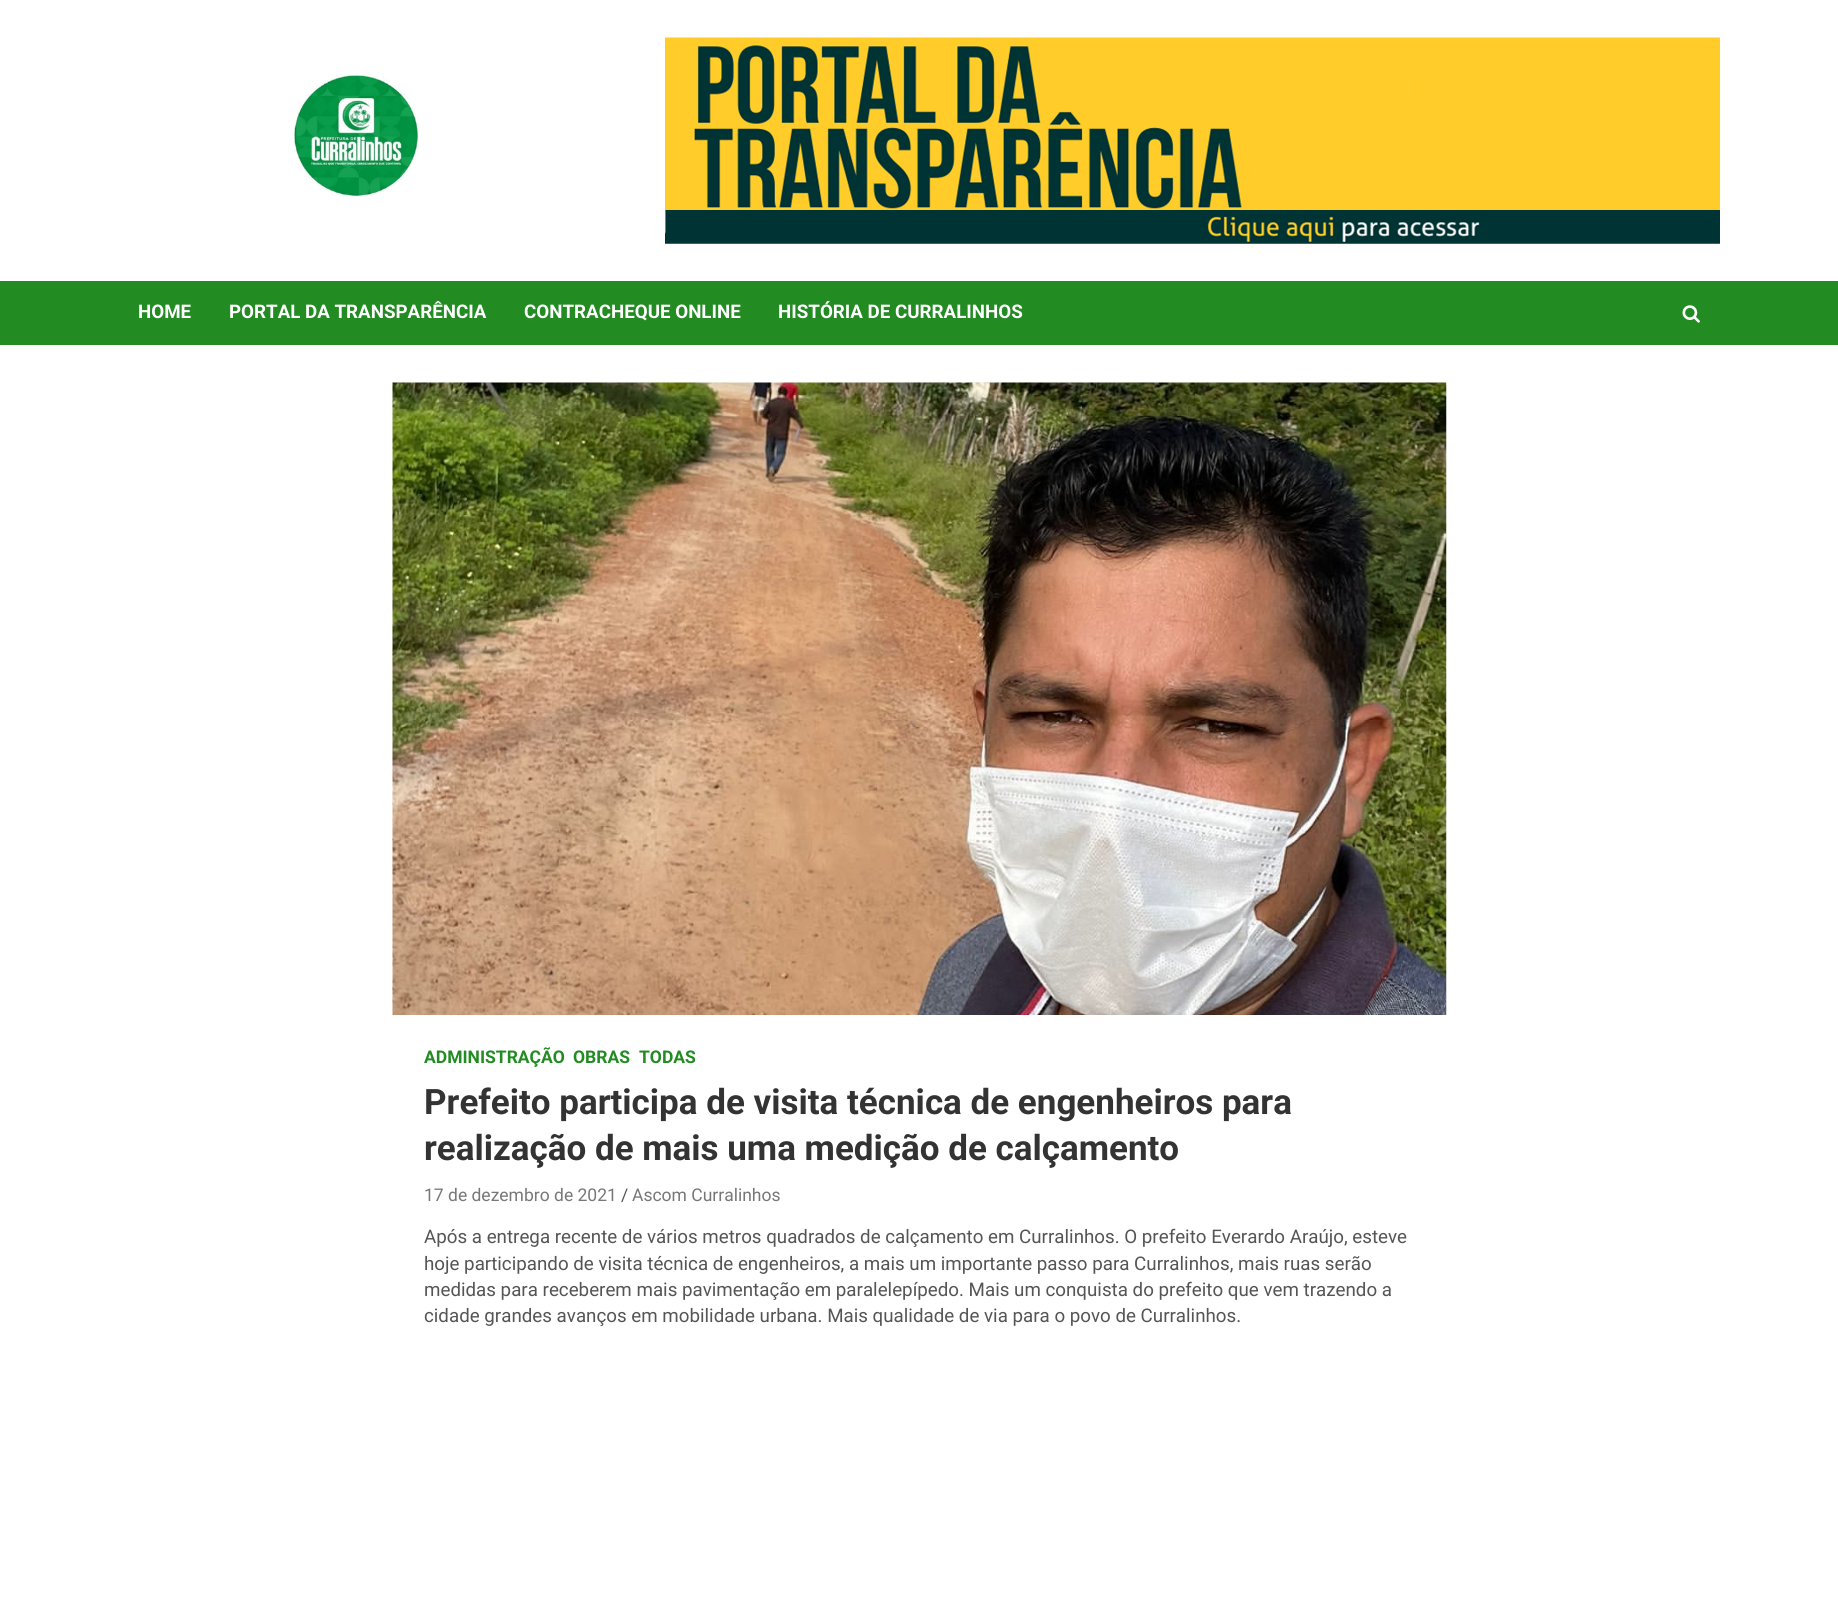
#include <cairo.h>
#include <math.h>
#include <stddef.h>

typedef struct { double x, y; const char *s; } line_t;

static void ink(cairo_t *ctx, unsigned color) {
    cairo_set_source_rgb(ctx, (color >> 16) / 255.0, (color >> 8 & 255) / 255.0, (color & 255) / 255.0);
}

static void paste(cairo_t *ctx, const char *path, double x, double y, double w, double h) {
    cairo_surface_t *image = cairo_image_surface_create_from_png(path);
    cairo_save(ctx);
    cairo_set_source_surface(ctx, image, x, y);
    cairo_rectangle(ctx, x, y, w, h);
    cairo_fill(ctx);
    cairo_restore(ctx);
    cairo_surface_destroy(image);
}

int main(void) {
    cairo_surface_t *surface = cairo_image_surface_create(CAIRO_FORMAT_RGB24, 1838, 1619);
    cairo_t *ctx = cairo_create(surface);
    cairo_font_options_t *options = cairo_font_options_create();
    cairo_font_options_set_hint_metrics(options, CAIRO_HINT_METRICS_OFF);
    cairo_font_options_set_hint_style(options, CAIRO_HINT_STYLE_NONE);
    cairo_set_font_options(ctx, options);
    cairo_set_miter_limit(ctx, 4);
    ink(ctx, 0xFFFFFF);
    cairo_paint(ctx);
    paste(ctx, "media/1.png", 294, 74, 126, 123);
    paste(ctx, "media/2.png", 665, 37, 1055, 207);
    ink(ctx, 0x228B22);
    cairo_rectangle(ctx, 0, 281, 1838, 64);
    cairo_fill(ctx);
    cairo_select_font_face(ctx, "Roboto", CAIRO_FONT_SLANT_NORMAL, CAIRO_FONT_WEIGHT_BOLD);
    cairo_set_font_size(ctx, 18.75);
    ink(ctx, 0xFFFFFF);
    {
        static const line_t items[] = {
            {138, 318, "HOME"},
            {229, 318, "PORTAL DA TRANSPARÊNCIA"},
            {524, 318, "CONTRACHEQUE ONLINE"},
            {778, 318, "HISTÓRIA DE CURRALINHOS"},
        };
        for (size_t i = 0; i < sizeof items / sizeof *items; i++) {
            cairo_move_to(ctx, items[i].x, items[i].y);
            cairo_show_text(ctx, items[i].s);
        }
    }
    paste(ctx, "media/3.png", 1682, 305, 18, 18);
    paste(ctx, "media/4.png", 392, 382, 1055, 633);
    cairo_set_font_size(ctx, 17.5);
    ink(ctx, 0x228B22);
    {
        static const line_t items[] = {
            {424, 1063, "ADMINISTRAÇÃO"},
            {573, 1063, "OBRAS"},
            {639, 1063, "TODAS"},
        };
        for (size_t i = 0; i < sizeof items / sizeof *items; i++) {
            cairo_move_to(ctx, items[i].x, items[i].y);
            cairo_show_text(ctx, items[i].s);
        }
    }
    cairo_set_font_size(ctx, 35);
    ink(ctx, 0x333333);
    cairo_move_to(ctx, 424, 1114);
    cairo_show_text(ctx, "Prefeito participa de visita técnica de engenheiros para");
    cairo_move_to(ctx, 424, 1160);
    cairo_show_text(ctx, "realização de mais uma medição de calçamento");
    cairo_select_font_face(ctx, "Roboto", CAIRO_FONT_SLANT_NORMAL, CAIRO_FONT_WEIGHT_NORMAL);
    cairo_set_font_size(ctx, 17.5);
    ink(ctx, 0x777777);
    cairo_move_to(ctx, 424, 1201);
    cairo_show_text(ctx, "17 de dezembro de 2021");
    ink(ctx, 0x555555);
    cairo_move_to(ctx, 621, 1201);
    cairo_show_text(ctx, "/");
    ink(ctx, 0x777777);
    cairo_move_to(ctx, 632, 1201);
    cairo_show_text(ctx, "Ascom Curralinhos");
    cairo_set_font_size(ctx, 18.75);
    ink(ctx, 0x555555);
    {
        static const line_t items[] = {
            {424, 1243, "Após a entrega recente de vários metros quadrados de calçamento em Curralinhos. O prefeito Everardo Araújo, esteve"},
            {424, 1270, "hoje participando de visita técnica de engenheiros, a mais um importante passo para Curralinhos, mais ruas serão"},
            {424, 1296, "medidas para receberem mais pavimentação em paralelepípedo. Mais um conquista do prefeito que vem trazendo a"},
            {424, 1322, "cidade grandes avanços em mobilidade urbana. Mais qualidade de via para o povo de Curralinhos."},
        };
        for (size_t i = 0; i < sizeof items / sizeof *items; i++) {
            cairo_move_to(ctx, items[i].x, items[i].y);
            cairo_show_text(ctx, items[i].s);
        }
    }
    cairo_surface_write_to_png(surface, "image.png");
    cairo_font_options_destroy(options);
    cairo_destroy(ctx);
    cairo_surface_destroy(surface);
    return 0;
}
